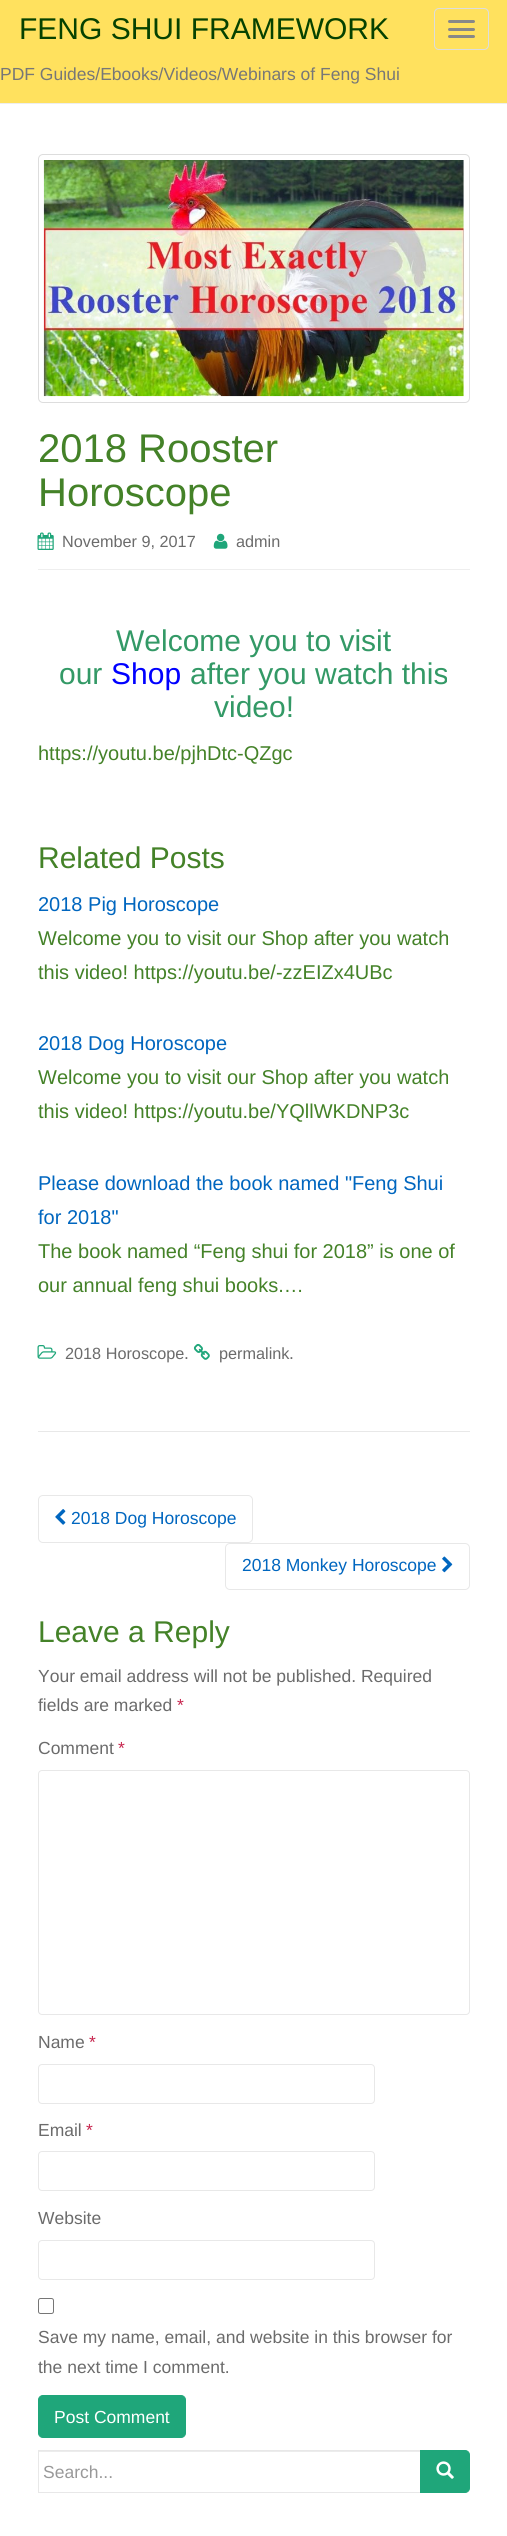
#include <cairo.h>
#include <math.h>
#include <stddef.h>


static void ink(cairo_t *ctx, unsigned color) {
    cairo_set_source_rgb(ctx, (color >> 16) / 255.0, (color >> 8 & 255) / 255.0, (color & 255) / 255.0);
}

static void round_path(cairo_t *ctx, double x, double y, double w, double h, double r) {
    cairo_new_sub_path(ctx);
    cairo_arc(ctx, x + w - r, y + h - r, r, 0, M_PI / 2);
    cairo_arc(ctx, x + r, y + h - r, r, M_PI / 2, M_PI);
    cairo_arc(ctx, x + r, y + r, r, M_PI, 1.5 * M_PI);
    cairo_arc(ctx, x + w - r, y + r, r, 1.5 * M_PI, 2 * M_PI);
    cairo_close_path(ctx);
}

static void paste(cairo_t *ctx, const char *path, double x, double y, double w, double h) {
    cairo_surface_t *image = cairo_image_surface_create_from_png(path);
    cairo_save(ctx);
    cairo_set_source_surface(ctx, image, x, y);
    cairo_rectangle(ctx, x, y, w, h);
    cairo_fill(ctx);
    cairo_restore(ctx);
    cairo_surface_destroy(image);
}

int main(void) {
    cairo_surface_t *surface = cairo_image_surface_create(CAIRO_FORMAT_RGB24, 507, 2536);
    cairo_t *ctx = cairo_create(surface);
    cairo_font_options_t *options = cairo_font_options_create();
    cairo_font_options_set_hint_metrics(options, CAIRO_HINT_METRICS_OFF);
    cairo_font_options_set_hint_style(options, CAIRO_HINT_STYLE_NONE);
    cairo_set_font_options(ctx, options);
    cairo_set_miter_limit(ctx, 4);
    ink(ctx, 0xFFFFFF);
    cairo_paint(ctx);
    ink(ctx, 0xFFE15E);
    cairo_rectangle(ctx, 0, 0, 507, 103);
    cairo_fill(ctx);
    ink(ctx, 0xEEEEEE);
    cairo_rectangle(ctx, 0, 103, 507, 1);
    cairo_fill(ctx);
    cairo_select_font_face(ctx, "Liberation Sans", CAIRO_FONT_SLANT_NORMAL, CAIRO_FONT_WEIGHT_NORMAL);
    cairo_set_font_size(ctx, 30);
    ink(ctx, 0x064200);
    cairo_move_to(ctx, 19, 39);
    cairo_show_text(ctx, "FENG SHUI FRAMEWORK");
    round_path(ctx, 434.5, 8.5, 54, 41, 4.5);
    ink(ctx, 0xDDDDDD);
    cairo_set_line_width(ctx, 1);
    cairo_stroke(ctx);
    ink(ctx, 0x888888);
    round_path(ctx, 448, 20, 27, 3, 1.5);
    cairo_fill(ctx);
    round_path(ctx, 448, 28, 27, 3, 1.5);
    cairo_fill(ctx);
    round_path(ctx, 448, 35, 27, 3, 1.5);
    cairo_fill(ctx);
    cairo_set_font_size(ctx, 17.5);
    ink(ctx, 0x777777);
    cairo_move_to(ctx, 0, 80);
    cairo_show_text(ctx, "PDF Guides/Ebooks/Videos/Webinars of Feng Shui");
    ink(ctx, 0xEEEEEE);
    cairo_rectangle(ctx, 38, 569, 432, 1);
    cairo_fill(ctx);
    round_path(ctx, 38.5, 154.5, 431, 248, 4.5);
    ink(ctx, 0xDDDDDD);
    cairo_stroke(ctx);
    paste(ctx, "media/1.png", 43, 160, 421, 237);
    cairo_set_font_size(ctx, 40);
    ink(ctx, 0x448228);
    cairo_move_to(ctx, 38, 462);
    cairo_show_text(ctx, "2018 Rooster");
    cairo_move_to(ctx, 38, 506);
    cairo_show_text(ctx, "Horoscope");
    paste(ctx, "media/2.png", 37, 532, 17, 18);
    cairo_set_font_size(ctx, 16.25);
    ink(ctx, 0x6B6B6B);
    cairo_move_to(ctx, 62, 547);
    cairo_show_text(ctx, "November 9, 2017");
    paste(ctx, "media/3.png", 213, 533, 15, 16);
    cairo_move_to(ctx, 236, 547);
    cairo_show_text(ctx, "admin");
    cairo_set_font_size(ctx, 30);
    ink(ctx, 0x339966);
    cairo_move_to(ctx, 116, 651);
    cairo_show_text(ctx, "Welcome you to visit");
    cairo_move_to(ctx, 59, 684);
    cairo_show_text(ctx, "our");
    ink(ctx, 0x0000FF);
    cairo_move_to(ctx, 111, 684);
    cairo_show_text(ctx, "Shop");
    ink(ctx, 0x339966);
    cairo_move_to(ctx, 190, 684);
    cairo_show_text(ctx, "after you watch this");
    cairo_move_to(ctx, 214, 717);
    cairo_show_text(ctx, "video!");
    cairo_set_font_size(ctx, 20);
    ink(ctx, 0x448228);
    cairo_move_to(ctx, 38, 760);
    cairo_show_text(ctx, "https://youtu.be/pjhDtc-QZgc");
    cairo_set_font_size(ctx, 30);
    cairo_move_to(ctx, 38, 868);
    cairo_show_text(ctx, "Related Posts");
    cairo_set_font_size(ctx, 20);
    ink(ctx, 0x0066BF);
    cairo_move_to(ctx, 38, 911);
    cairo_show_text(ctx, "2018 Pig Horoscope");
    ink(ctx, 0x448228);
    cairo_move_to(ctx, 38, 945);
    cairo_show_text(ctx, "Welcome you to visit our Shop after you watch");
    cairo_move_to(ctx, 38, 979);
    cairo_show_text(ctx, "this video! https://youtu.be/-zzEIZx4UBc");
    ink(ctx, 0x0066BF);
    cairo_move_to(ctx, 38, 1050);
    cairo_show_text(ctx, "2018 Dog Horoscope");
    ink(ctx, 0x448228);
    cairo_move_to(ctx, 38, 1084);
    cairo_show_text(ctx, "Welcome you to visit our Shop after you watch");
    cairo_move_to(ctx, 38, 1118);
    cairo_show_text(ctx, "this video! https://youtu.be/YQllWKDNP3c");
    ink(ctx, 0x0066BF);
    cairo_move_to(ctx, 38, 1190);
    cairo_show_text(ctx, "Please download the book named \"Feng Shui");
    cairo_move_to(ctx, 38, 1224);
    cairo_show_text(ctx, "for 2018\"");
    ink(ctx, 0x448228);
    cairo_move_to(ctx, 38, 1258);
    cairo_show_text(ctx, "The book named “Feng shui for 2018” is one of");
    cairo_move_to(ctx, 38, 1292);
    cairo_show_text(ctx, "our annual feng shui books.…");
    paste(ctx, "media/4.png", 37, 1345, 20, 14);
    cairo_set_font_size(ctx, 16.25);
    ink(ctx, 0x6B6B6B);
    cairo_move_to(ctx, 65, 1359);
    cairo_show_text(ctx, "2018 Horoscope");
    cairo_set_font_size(ctx, 17.5);
    cairo_move_to(ctx, 184, 1359);
    cairo_show_text(ctx, ".");
    paste(ctx, "media/5.png", 193, 1343, 17, 17);
    cairo_set_font_size(ctx, 16.25);
    cairo_move_to(ctx, 219, 1359);
    cairo_show_text(ctx, "permalink");
    cairo_set_font_size(ctx, 17.5);
    cairo_move_to(ctx, 289, 1359);
    cairo_show_text(ctx, ".");
    ink(ctx, 0xE8E8E8);
    cairo_rectangle(ctx, 38, 1431, 432, 1);
    cairo_fill(ctx);
    round_path(ctx, 38.5, 1495.5, 214, 47, 4.5);
    cairo_stroke(ctx);
    paste(ctx, "media/6.png", 55, 1509, 11, 16);
    ink(ctx, 0x0066BF);
    cairo_move_to(ctx, 71, 1524);
    cairo_show_text(ctx, "2018 Dog Horoscope");
    round_path(ctx, 225.5, 1543.5, 244, 46, 4.5);
    ink(ctx, 0xE8E8E8);
    cairo_stroke(ctx);
    ink(ctx, 0x0066BF);
    cairo_move_to(ctx, 242, 1571);
    cairo_show_text(ctx, "2018 Monkey Horoscope");
    paste(ctx, "media/7.png", 442, 1556, 11, 17);
    cairo_set_font_size(ctx, 30);
    ink(ctx, 0x448228);
    cairo_move_to(ctx, 38, 1642);
    cairo_show_text(ctx, "Leave a Reply");
    cairo_set_font_size(ctx, 17.5);
    ink(ctx, 0x6B6B6B);
    cairo_move_to(ctx, 38, 1682);
    cairo_show_text(ctx, "Your email address will not be published. Required");
    cairo_move_to(ctx, 38, 1711);
    cairo_show_text(ctx, "fields are marked");
    ink(ctx, 0xC7254E);
    cairo_move_to(ctx, 177, 1711);
    cairo_show_text(ctx, "*");
    ink(ctx, 0x6B6B6B);
    cairo_move_to(ctx, 38, 1754);
    cairo_show_text(ctx, "Comment");
    ink(ctx, 0xC7254E);
    cairo_move_to(ctx, 118, 1754);
    cairo_show_text(ctx, "*");
    round_path(ctx, 38.5, 1770.5, 431, 244, 3.5);
    ink(ctx, 0xE8E8E8);
    cairo_stroke(ctx);
    ink(ctx, 0x6B6B6B);
    cairo_move_to(ctx, 38, 2048);
    cairo_show_text(ctx, "Name");
    ink(ctx, 0xC7254E);
    cairo_move_to(ctx, 89, 2048);
    cairo_show_text(ctx, "*");
    round_path(ctx, 38.5, 2064.5, 336, 39, 3.5);
    ink(ctx, 0xE8E8E8);
    cairo_stroke(ctx);
    ink(ctx, 0x6B6B6B);
    cairo_move_to(ctx, 38, 2136);
    cairo_show_text(ctx, "Email");
    ink(ctx, 0xC7254E);
    cairo_move_to(ctx, 86, 2136);
    cairo_show_text(ctx, "*");
    round_path(ctx, 38.5, 2151.5, 336, 39, 3.5);
    ink(ctx, 0xE8E8E8);
    cairo_stroke(ctx);
    ink(ctx, 0x6B6B6B);
    cairo_move_to(ctx, 38, 2224);
    cairo_show_text(ctx, "Website");
    round_path(ctx, 38.5, 2240.5, 336, 39, 3.5);
    ink(ctx, 0xE8E8E8);
    cairo_stroke(ctx);
    round_path(ctx, 38.5, 2298.5, 15, 15, 2);
    ink(ctx, 0x767676);
    cairo_stroke(ctx);
    ink(ctx, 0x6B6B6B);
    cairo_move_to(ctx, 38, 2343);
    cairo_show_text(ctx, "Save my name, email, and website in this browser for");
    cairo_move_to(ctx, 38, 2373);
    cairo_show_text(ctx, "the next time I comment.");
    ink(ctx, 0x1FA67A);
    round_path(ctx, 38.5, 2395.5, 147, 42, 4.5);
    cairo_fill_preserve(ctx);
    cairo_stroke(ctx);
    ink(ctx, 0xFFFFFF);
    cairo_move_to(ctx, 54, 2423);
    cairo_show_text(ctx, "Post Comment");
    ink(ctx, 0xECECEC);
    cairo_rectangle(ctx, 39, 2451, 381, 1);
    cairo_fill(ctx);
    cairo_rectangle(ctx, 38.5, 2450.5, 382, 42);
    ink(ctx, 0xE8E8E8);
    cairo_stroke(ctx);
    ink(ctx, 0x999999);
    cairo_move_to(ctx, 43, 2478);
    cairo_show_text(ctx, "Search...");
    ink(ctx, 0x1FA67A);
    cairo_new_path(ctx);
    cairo_move_to(ctx, 420.5, 2450.5);
    cairo_line_to(ctx, 465, 2450.5);
    cairo_curve_to(ctx, 467.5, 2450.5, 469.5, 2452.5, 469.5, 2455);
    cairo_line_to(ctx, 469.5, 2488);
    cairo_curve_to(ctx, 469.5, 2490.5, 467.5, 2492.5, 465, 2492.5);
    cairo_line_to(ctx, 420.5, 2492.5);
    cairo_close_path(ctx);
    cairo_fill_preserve(ctx);
    cairo_stroke(ctx);
    paste(ctx, "media/8.png", 436, 2461, 18, 18);
    cairo_surface_write_to_png(surface, "image.png");
    cairo_font_options_destroy(options);
    cairo_destroy(ctx);
    cairo_surface_destroy(surface);
    return 0;
}
